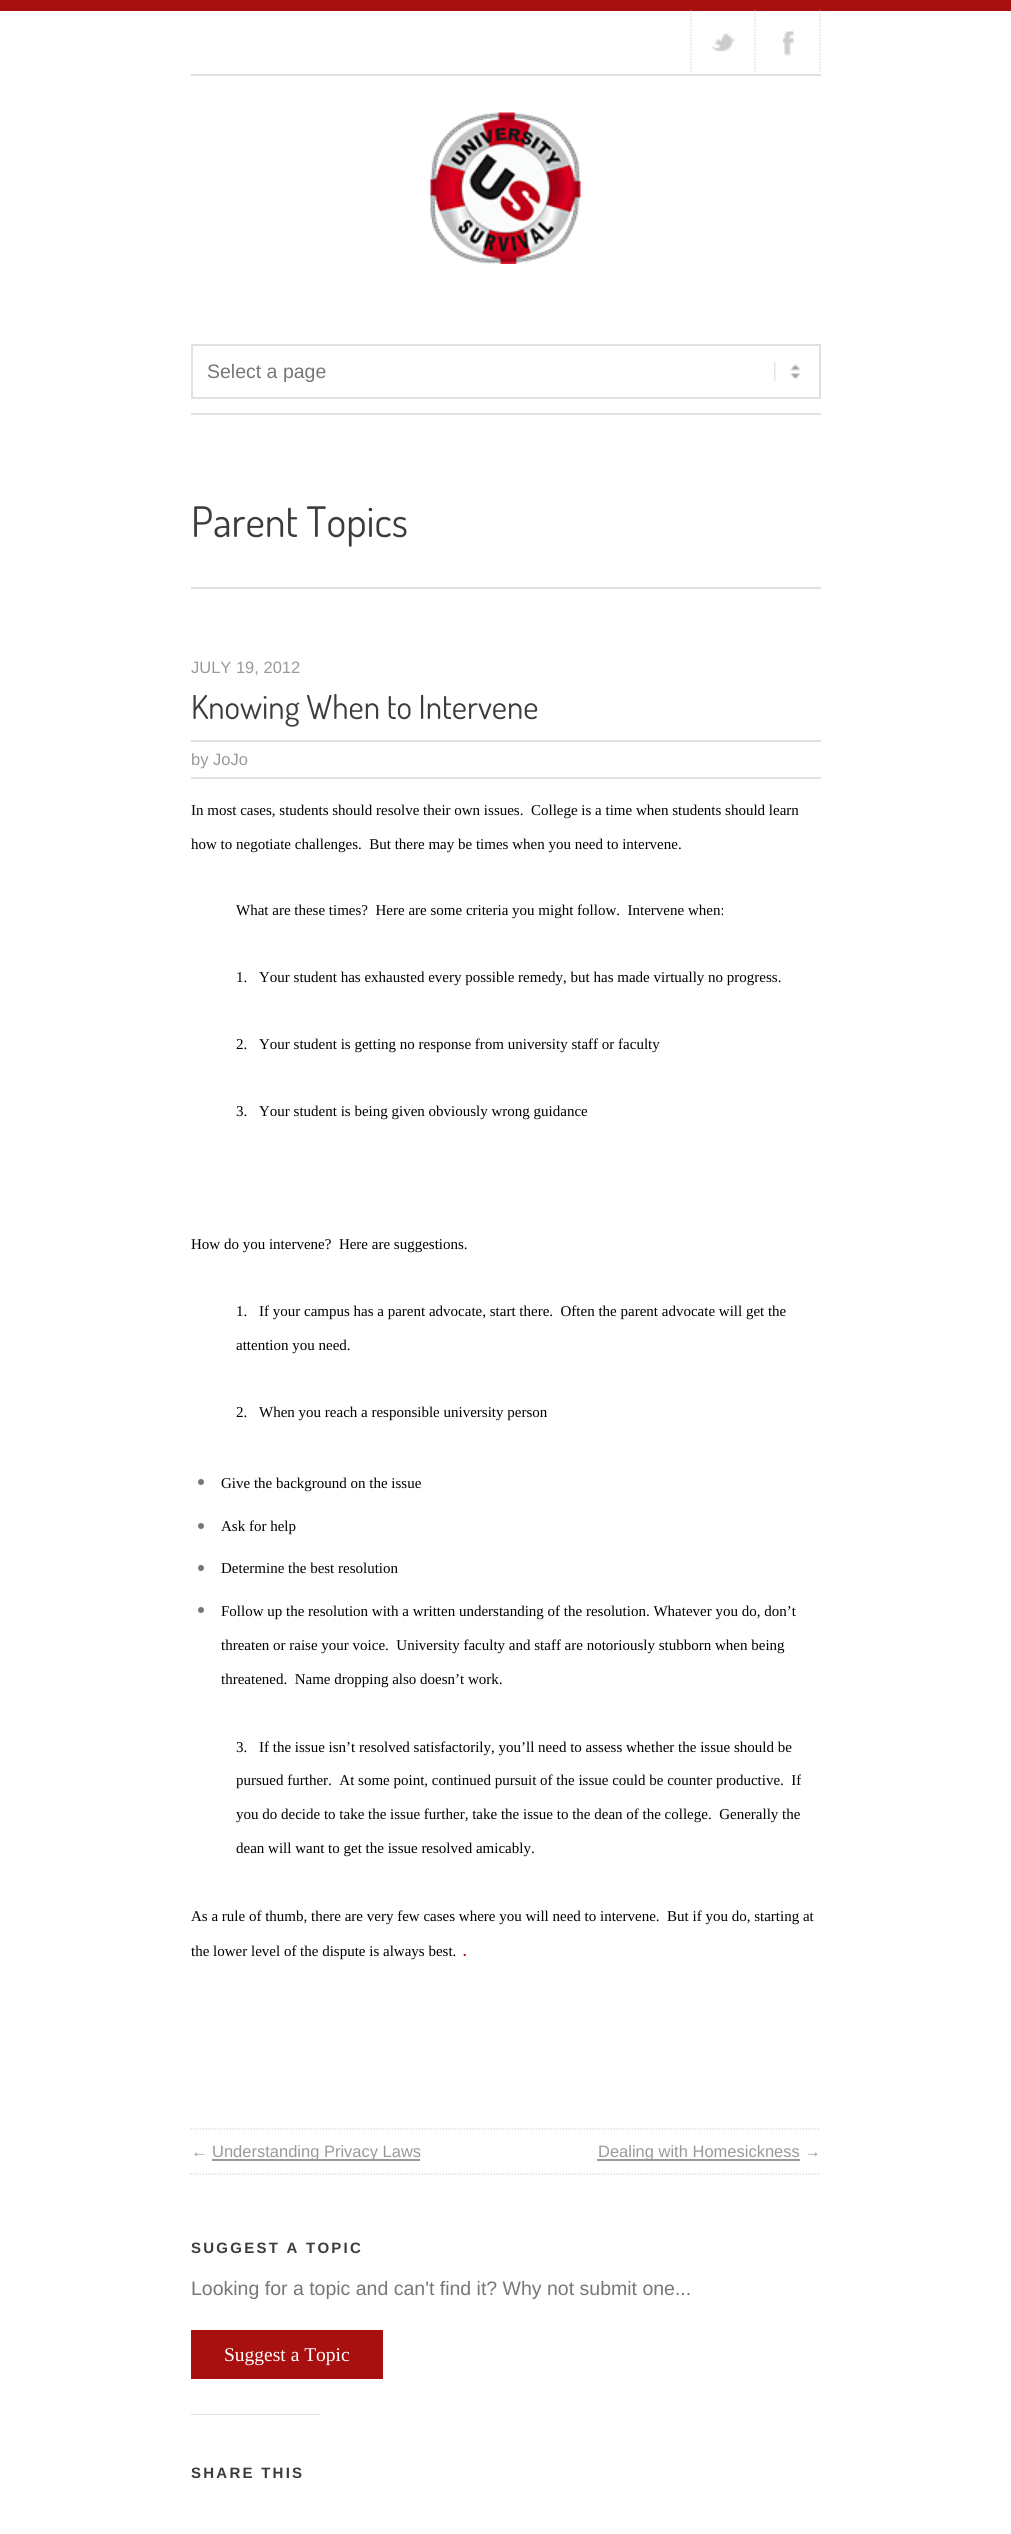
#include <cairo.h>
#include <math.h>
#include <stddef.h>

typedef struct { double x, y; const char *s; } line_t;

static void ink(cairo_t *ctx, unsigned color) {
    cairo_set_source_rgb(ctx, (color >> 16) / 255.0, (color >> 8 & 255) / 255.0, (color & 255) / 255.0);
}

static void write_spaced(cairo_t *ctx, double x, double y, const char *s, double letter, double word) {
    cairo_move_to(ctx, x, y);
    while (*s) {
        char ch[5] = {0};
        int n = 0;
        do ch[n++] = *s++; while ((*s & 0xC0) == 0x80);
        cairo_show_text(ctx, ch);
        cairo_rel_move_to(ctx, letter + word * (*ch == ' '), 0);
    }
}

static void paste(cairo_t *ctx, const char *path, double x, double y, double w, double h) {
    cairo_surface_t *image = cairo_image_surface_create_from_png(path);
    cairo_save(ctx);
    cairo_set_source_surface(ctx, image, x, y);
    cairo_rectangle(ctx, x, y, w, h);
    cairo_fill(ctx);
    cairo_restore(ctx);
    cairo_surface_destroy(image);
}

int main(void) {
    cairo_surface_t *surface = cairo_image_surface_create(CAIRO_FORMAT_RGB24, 1011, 2534);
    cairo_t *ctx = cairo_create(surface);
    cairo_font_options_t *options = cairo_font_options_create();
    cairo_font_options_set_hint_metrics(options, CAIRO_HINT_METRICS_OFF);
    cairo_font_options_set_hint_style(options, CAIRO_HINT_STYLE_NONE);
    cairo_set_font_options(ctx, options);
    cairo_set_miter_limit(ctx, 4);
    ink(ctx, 0xFFFFFF);
    cairo_paint(ctx);
    ink(ctx, 0xA81010);
    cairo_rectangle(ctx, 0, 0, 1011, 11);
    cairo_fill(ctx);
    ink(ctx, 0xE1E1E1);
    cairo_rectangle(ctx, 191, 74, 630, 2);
    cairo_fill(ctx);
    cairo_new_path(ctx);
    cairo_move_to(ctx, 820, 10.5);
    cairo_line_to(ctx, 820, 73.5);
    cairo_set_line_width(ctx, 1.5);
    cairo_set_dash(ctx, (double[]){1.5, 1.5}, 2, 0);
    cairo_stroke(ctx);
    paste(ctx, "media/1.png", 711, 33, 24, 19);
    cairo_new_path(ctx);
    cairo_move_to(ctx, 691, 10.5);
    cairo_line_to(ctx, 691, 73.5);
    cairo_stroke(ctx);
    paste(ctx, "media/2.png", 782, 31, 12, 25);
    cairo_new_path(ctx);
    cairo_move_to(ctx, 755, 10.5);
    cairo_line_to(ctx, 755, 73.5);
    cairo_stroke(ctx);
    cairo_rectangle(ctx, 191, 413, 630, 2);
    cairo_fill(ctx);
    paste(ctx, "media/3.png", 430, 112, 151, 152);
    paste(ctx, "media/4.png", 774, 361, 27, 20);
    cairo_rectangle(ctx, 192, 345, 628, 53);
    cairo_set_line_width(ctx, 2);
    cairo_set_dash(ctx, NULL, 0, 0);
    cairo_stroke(ctx);
    cairo_select_font_face(ctx, "Liberation Sans", CAIRO_FONT_SLANT_NORMAL, CAIRO_FONT_WEIGHT_NORMAL);
    cairo_set_font_size(ctx, 19.5);
    ink(ctx, 0x777777);
    cairo_move_to(ctx, 207, 378);
    cairo_show_text(ctx, "Select a page");
    cairo_select_font_face(ctx, "Dosis", CAIRO_FONT_SLANT_NORMAL, CAIRO_FONT_WEIGHT_NORMAL);
    cairo_set_font_size(ctx, 42);
    ink(ctx, 0x3C3C3C);
    cairo_move_to(ctx, 191, 537);
    cairo_show_text(ctx, "Parent Topics");
    ink(ctx, 0xE1E1E1);
    cairo_rectangle(ctx, 191, 587, 630, 2);
    cairo_fill(ctx);
    cairo_select_font_face(ctx, "Liberation Sans", CAIRO_FONT_SLANT_NORMAL, CAIRO_FONT_WEIGHT_NORMAL);
    cairo_set_font_size(ctx, 16.5);
    ink(ctx, 0x999999);
    cairo_move_to(ctx, 191, 673);
    cairo_show_text(ctx, "JULY 19, 2012");
    ink(ctx, 0xE1E1E1);
    cairo_rectangle(ctx, 191, 740, 630, 2);
    cairo_fill(ctx);
    cairo_rectangle(ctx, 191, 777, 630, 2);
    cairo_fill(ctx);
    ink(ctx, 0x999999);
    cairo_move_to(ctx, 191, 765);
    cairo_show_text(ctx, "by JoJo");
    cairo_select_font_face(ctx, "Liberation Serif", CAIRO_FONT_SLANT_NORMAL, CAIRO_FONT_WEIGHT_NORMAL);
    cairo_set_font_size(ctx, 15);
    ink(ctx, 0x000000);
    {
        static const line_t items[] = {
            {191, 815, "In most cases, students should resolve their own issues.  College is a time when students should learn"},
            {191, 849, "how to negotiate challenges.  But there may be times when you need to intervene."},
            {236, 915, "What are these times?  Here are some criteria you might follow.  Intervene when:"},
            {236, 982, "1."},
            {259, 982, "Your student has exhausted every possible remedy, but has made virtually no progress."},
            {236, 1049, "2."},
            {259, 1049, "Your student is getting no response from university staff or faculty"},
            {236, 1116, "3."},
            {259, 1116, "Your student is being given obviously wrong guidance"},
            {191, 1249, "How do you intervene?  Here are suggestions."},
            {236, 1316, "1."},
            {259, 1316, "If your campus has a parent advocate, start there.  Often the parent advocate will get the"},
            {236, 1350, "attention you need."},
            {236, 1417, "2."},
            {259, 1417, "When you reach a responsible university person"},
        };
        for (size_t i = 0; i < sizeof items / sizeof *items; i++) {
            cairo_move_to(ctx, items[i].x, items[i].y);
            cairo_show_text(ctx, items[i].s);
        }
    }
    ink(ctx, 0x777777);
    cairo_new_path(ctx);
    cairo_arc(ctx, 201, 1482, 3, 0, 2 * M_PI);
    cairo_fill(ctx);
    ink(ctx, 0x000000);
    cairo_move_to(ctx, 221, 1488);
    cairo_show_text(ctx, "Give the background on the issue");
    ink(ctx, 0x777777);
    cairo_new_path(ctx);
    cairo_arc(ctx, 201, 1526, 3, 0, 2 * M_PI);
    cairo_fill(ctx);
    ink(ctx, 0x000000);
    cairo_move_to(ctx, 221, 1531);
    cairo_show_text(ctx, "Ask for help");
    ink(ctx, 0x777777);
    cairo_new_path(ctx);
    cairo_arc(ctx, 201, 1568, 3, 0, 2 * M_PI);
    cairo_fill(ctx);
    ink(ctx, 0x000000);
    cairo_move_to(ctx, 221, 1573);
    cairo_show_text(ctx, "Determine the best resolution");
    ink(ctx, 0x777777);
    cairo_new_path(ctx);
    cairo_arc(ctx, 201, 1610, 3, 0, 2 * M_PI);
    cairo_fill(ctx);
    ink(ctx, 0x000000);
    {
        static const line_t items[] = {
            {221, 1616, "Follow up the resolution with a written understanding of the resolution. Whatever you do, don’t"},
            {221, 1650, "threaten or raise your voice.  University faculty and staff are notoriously stubborn when being"},
            {221, 1684, "threatened.  Name dropping also doesn’t work."},
            {236, 1752, "3."},
            {259, 1752, "If the issue isn’t resolved satisfactorily, you’ll need to assess whether the issue should be"},
            {236, 1785, "pursued further.  At some point, continued pursuit of the issue could be counter productive.  If"},
            {236, 1819, "you do decide to take the issue further, take the issue to the dean of the college.  Generally the"},
            {236, 1853, "dean will want to get the issue resolved amicably."},
            {191, 1921, "As a rule of thumb, there are very few cases where you will need to intervene.  But if you do, starting at"},
            {191, 1956, "the lower level of the dispute is always best."},
        };
        for (size_t i = 0; i < sizeof items / sizeof *items; i++) {
            cairo_move_to(ctx, items[i].x, items[i].y);
            cairo_show_text(ctx, items[i].s);
        }
    }
    cairo_select_font_face(ctx, "Liberation Sans", CAIRO_FONT_SLANT_NORMAL, CAIRO_FONT_WEIGHT_NORMAL);
    cairo_set_font_size(ctx, 19.5);
    ink(ctx, 0xA81010);
    cairo_move_to(ctx, 462, 1956);
    cairo_show_text(ctx, ".");
    cairo_select_font_face(ctx, "Dosis", CAIRO_FONT_SLANT_NORMAL, CAIRO_FONT_WEIGHT_NORMAL);
    cairo_set_font_size(ctx, 33);
    ink(ctx, 0x3C3C3C);
    cairo_move_to(ctx, 191, 719);
    cairo_show_text(ctx, "Knowing When to Intervene");
    cairo_new_path(ctx);
    cairo_move_to(ctx, 190.5, 2129);
    cairo_line_to(ctx, 820.5, 2129);
    ink(ctx, 0xE1E1E1);
    cairo_set_line_width(ctx, 1.5);
    cairo_set_dash(ctx, (double[]){1.5, 1.5}, 2, 0);
    cairo_stroke(ctx);
    cairo_new_path(ctx);
    cairo_move_to(ctx, 190.5, 2174);
    cairo_line_to(ctx, 820.5, 2174);
    cairo_stroke(ctx);
    cairo_select_font_face(ctx, "Liberation Sans", CAIRO_FONT_SLANT_NORMAL, CAIRO_FONT_WEIGHT_NORMAL);
    cairo_set_font_size(ctx, 16.5);
    ink(ctx, 0x999999);
    cairo_move_to(ctx, 191, 2157);
    cairo_show_text(ctx, "←");
    cairo_rectangle(ctx, 212, 2159, 208, 2);
    cairo_fill(ctx);
    cairo_move_to(ctx, 212, 2157);
    cairo_show_text(ctx, "Understanding Privacy Laws");
    cairo_rectangle(ctx, 597, 2159, 203, 2);
    cairo_fill(ctx);
    cairo_move_to(ctx, 598, 2157);
    cairo_show_text(ctx, "Dealing with Homesickness →");
    cairo_select_font_face(ctx, "Liberation Sans", CAIRO_FONT_SLANT_NORMAL, CAIRO_FONT_WEIGHT_BOLD);
    cairo_set_font_size(ctx, 15);
    ink(ctx, 0x3C3C3C);
    write_spaced(ctx, 191, 2253, "SUGGEST A TOPIC", 2.25, 0);
    cairo_select_font_face(ctx, "Liberation Sans", CAIRO_FONT_SLANT_NORMAL, CAIRO_FONT_WEIGHT_NORMAL);
    cairo_set_font_size(ctx, 19.5);
    ink(ctx, 0x777777);
    cairo_move_to(ctx, 191, 2295);
    cairo_show_text(ctx, "Looking for a topic and can't find it? Why not submit one...");
    ink(ctx, 0xA81010);
    cairo_rectangle(ctx, 191, 2330, 192, 49);
    cairo_fill(ctx);
    cairo_select_font_face(ctx, "Liberation Serif", CAIRO_FONT_SLANT_NORMAL, CAIRO_FONT_WEIGHT_NORMAL);
    ink(ctx, 0xFFFFFF);
    cairo_move_to(ctx, 224, 2361);
    cairo_show_text(ctx, "Suggest a Topic");
    ink(ctx, 0xE1E1E1);
    cairo_rectangle(ctx, 191, 2414, 129, 1);
    cairo_fill(ctx);
    cairo_select_font_face(ctx, "Liberation Sans", CAIRO_FONT_SLANT_NORMAL, CAIRO_FONT_WEIGHT_BOLD);
    cairo_set_font_size(ctx, 15);
    ink(ctx, 0x3C3C3C);
    write_spaced(ctx, 191, 2478, "SHARE THIS", 2.25, 0);
    cairo_surface_write_to_png(surface, "image.png");
    cairo_font_options_destroy(options);
    cairo_destroy(ctx);
    cairo_surface_destroy(surface);
    return 0;
}
